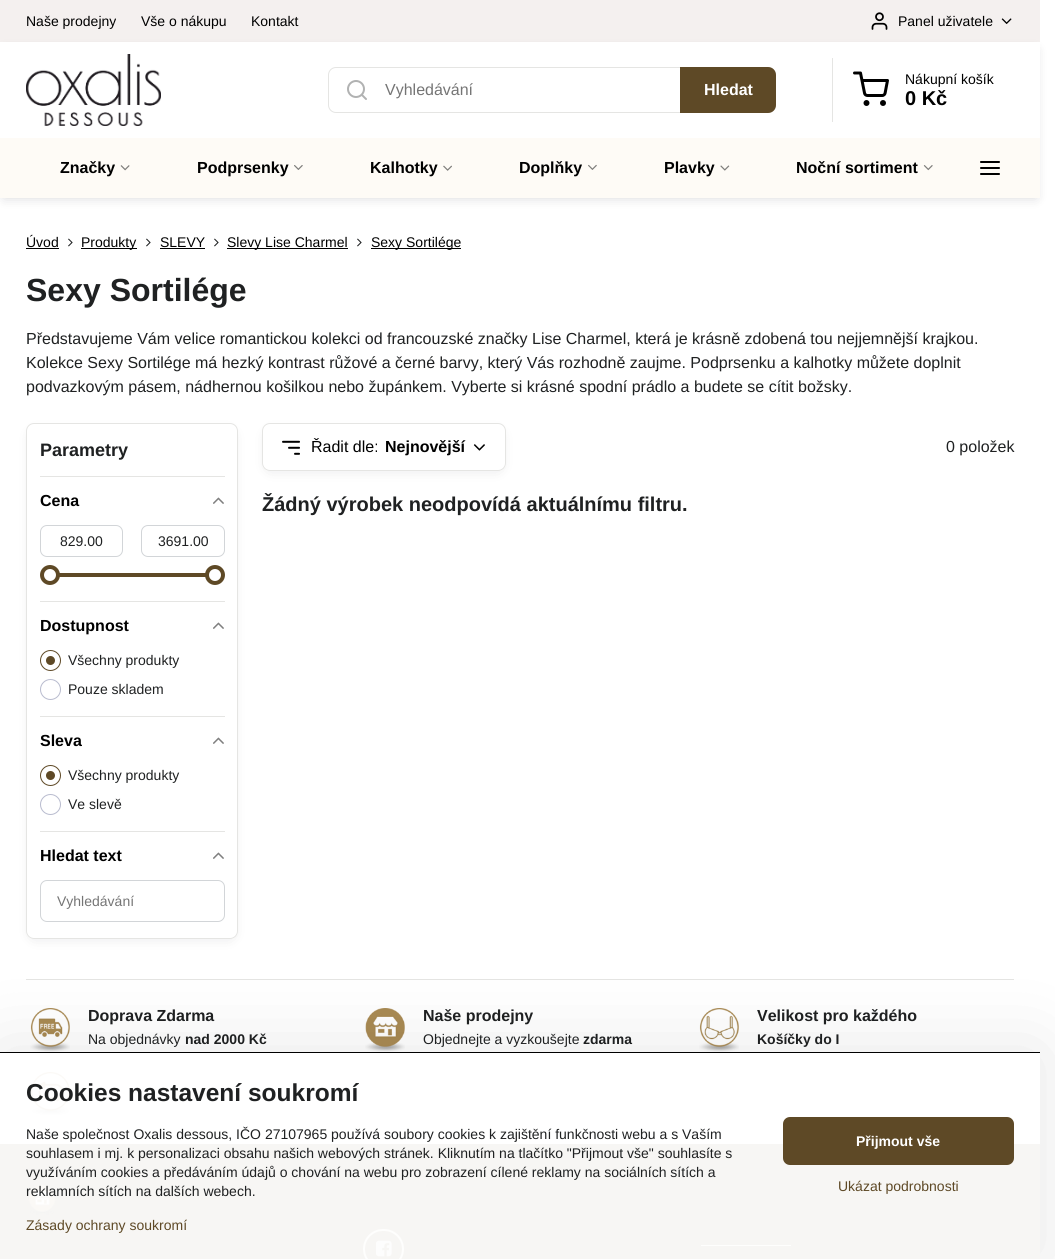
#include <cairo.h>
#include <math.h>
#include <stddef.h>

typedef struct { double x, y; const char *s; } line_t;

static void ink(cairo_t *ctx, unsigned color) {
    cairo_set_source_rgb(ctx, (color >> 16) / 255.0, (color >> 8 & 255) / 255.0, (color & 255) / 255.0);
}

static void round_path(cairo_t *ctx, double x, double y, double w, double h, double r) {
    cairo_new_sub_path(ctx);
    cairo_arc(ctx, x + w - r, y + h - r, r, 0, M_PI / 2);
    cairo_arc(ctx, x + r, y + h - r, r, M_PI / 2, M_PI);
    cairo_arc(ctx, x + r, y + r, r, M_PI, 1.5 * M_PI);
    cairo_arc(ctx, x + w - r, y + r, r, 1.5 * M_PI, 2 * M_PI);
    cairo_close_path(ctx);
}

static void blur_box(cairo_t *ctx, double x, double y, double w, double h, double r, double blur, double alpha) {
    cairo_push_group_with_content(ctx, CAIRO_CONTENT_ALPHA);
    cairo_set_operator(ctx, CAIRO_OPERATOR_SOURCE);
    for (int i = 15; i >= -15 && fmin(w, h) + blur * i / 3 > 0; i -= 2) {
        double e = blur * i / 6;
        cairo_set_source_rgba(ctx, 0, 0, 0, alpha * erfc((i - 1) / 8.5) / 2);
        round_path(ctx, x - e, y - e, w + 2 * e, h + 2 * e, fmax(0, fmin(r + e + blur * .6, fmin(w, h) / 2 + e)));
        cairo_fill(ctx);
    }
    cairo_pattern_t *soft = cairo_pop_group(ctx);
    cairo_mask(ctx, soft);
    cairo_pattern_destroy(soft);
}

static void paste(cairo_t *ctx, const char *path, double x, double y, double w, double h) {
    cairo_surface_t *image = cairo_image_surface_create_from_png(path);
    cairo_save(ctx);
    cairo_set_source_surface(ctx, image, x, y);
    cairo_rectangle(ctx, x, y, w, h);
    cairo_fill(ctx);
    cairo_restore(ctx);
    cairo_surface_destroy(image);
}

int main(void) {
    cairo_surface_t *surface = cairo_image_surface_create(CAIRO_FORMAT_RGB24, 1055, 1259);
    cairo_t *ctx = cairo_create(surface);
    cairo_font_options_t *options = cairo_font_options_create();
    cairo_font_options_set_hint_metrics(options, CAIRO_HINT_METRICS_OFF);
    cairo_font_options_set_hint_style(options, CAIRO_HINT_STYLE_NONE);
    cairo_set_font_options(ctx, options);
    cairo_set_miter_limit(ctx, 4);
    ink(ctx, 0xFFFFFF);
    cairo_paint(ctx);
    ink(ctx, 0xF4F0EF);
    cairo_rectangle(ctx, 0, 0, 1040, 42);
    cairo_fill(ctx);
    cairo_select_font_face(ctx, "Liberation Sans", CAIRO_FONT_SLANT_NORMAL, CAIRO_FONT_WEIGHT_NORMAL);
    cairo_set_font_size(ctx, 14);
    ink(ctx, 0x000000);
    {
        static const line_t items[] = {
            {26, 26, "Naše prodejny"},
            {141, 26, "Vše o nákupu"},
            {251, 26, "Kontakt"},
        };
        for (size_t i = 0; i < sizeof items / sizeof *items; i++) {
            cairo_move_to(ctx, items[i].x, items[i].y);
            cairo_show_text(ctx, items[i].s);
        }
    }
    paste(ctx, "media/1.png", 871, 12, 17, 18);
    cairo_move_to(ctx, 898, 26);
    cairo_show_text(ctx, "Panel uživatele");
    paste(ctx, "media/2.png", 1001, 18, 11, 6);
    cairo_save(ctx);
    cairo_set_fill_rule(ctx, CAIRO_FILL_RULE_EVEN_ODD);
    cairo_new_path(ctx);
    cairo_move_to(ctx, 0, 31);
    cairo_line_to(ctx, 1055, 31);
    cairo_line_to(ctx, 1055, 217);
    cairo_line_to(ctx, 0, 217);
    cairo_close_path(ctx);
    cairo_move_to(ctx, 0, 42);
    cairo_line_to(ctx, 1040, 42);
    cairo_line_to(ctx, 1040, 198);
    cairo_line_to(ctx, 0, 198);
    cairo_close_path(ctx);
    cairo_clip(ctx);
    ink(ctx, 0x000014);
    blur_box(ctx, 4, 50, 1032, 148, 0, 6, 0.15);
    cairo_restore(ctx);
    paste(ctx, "media/3.png", 26, 54, 135, 72);
    round_path(ctx, 328.5, 67.5, 447, 45, 7.5);
    ink(ctx, 0xE5E5E3);
    cairo_set_line_width(ctx, 1);
    cairo_stroke(ctx);
    paste(ctx, "media/4.png", 347, 80, 20, 20);
    cairo_set_font_size(ctx, 16);
    ink(ctx, 0x757575);
    cairo_move_to(ctx, 385, 95);
    cairo_show_text(ctx, "Vyhledávání");
    ink(ctx, 0x5E4926);
    cairo_new_path(ctx);
    cairo_move_to(ctx, 680, 67);
    cairo_line_to(ctx, 768, 67);
    cairo_curve_to(ctx, 772.5, 67, 776, 70.5, 776, 75);
    cairo_line_to(ctx, 776, 105);
    cairo_curve_to(ctx, 776, 109.5, 772.5, 113, 768, 113);
    cairo_line_to(ctx, 680, 113);
    cairo_close_path(ctx);
    cairo_fill(ctx);
    cairo_select_font_face(ctx, "Liberation Sans", CAIRO_FONT_SLANT_NORMAL, CAIRO_FONT_WEIGHT_BOLD);
    ink(ctx, 0xFFFFFF);
    cairo_move_to(ctx, 704, 95);
    cairo_show_text(ctx, "Hledat");
    ink(ctx, 0xE5E5E3);
    cairo_rectangle(ctx, 832, 58, 1, 64);
    cairo_fill(ctx);
    paste(ctx, "media/5.png", 853, 71, 36, 35);
    cairo_select_font_face(ctx, "Liberation Sans", CAIRO_FONT_SLANT_NORMAL, CAIRO_FONT_WEIGHT_NORMAL);
    cairo_set_font_size(ctx, 14);
    ink(ctx, 0x000000);
    cairo_move_to(ctx, 905, 84);
    cairo_show_text(ctx, "Nákupní košík");
    cairo_select_font_face(ctx, "Liberation Sans", CAIRO_FONT_SLANT_NORMAL, CAIRO_FONT_WEIGHT_BOLD);
    cairo_set_font_size(ctx, 20);
    cairo_move_to(ctx, 905, 105);
    cairo_show_text(ctx, "0 Kč");
    ink(ctx, 0xFEFBF6);
    cairo_rectangle(ctx, 0, 138, 1040, 60);
    cairo_fill(ctx);
    cairo_set_font_size(ctx, 16);
    ink(ctx, 0x000000);
    cairo_move_to(ctx, 60, 173);
    cairo_show_text(ctx, "Značky");
    paste(ctx, "media/6.png", 120, 165, 10, 6);
    cairo_move_to(ctx, 197, 173);
    cairo_show_text(ctx, "Podprsenky");
    paste(ctx, "media/7.png", 294, 165, 9, 5);
    cairo_move_to(ctx, 370, 173);
    cairo_show_text(ctx, "Kalhotky");
    paste(ctx, "media/8.png", 443, 165, 9, 6);
    cairo_move_to(ctx, 519, 173);
    cairo_show_text(ctx, "Doplňky");
    paste(ctx, "media/9.png", 588, 164, 9, 6);
    cairo_move_to(ctx, 664, 173);
    cairo_show_text(ctx, "Plavky");
    paste(ctx, "media/10.png", 720, 165, 10, 6);
    cairo_move_to(ctx, 796, 173);
    cairo_show_text(ctx, "Noční sortiment");
    paste(ctx, "media/11.png", 923, 165, 10, 6);
    paste(ctx, "media/12.png", 980, 161, 20, 14);
    cairo_select_font_face(ctx, "Liberation Sans", CAIRO_FONT_SLANT_NORMAL, CAIRO_FONT_WEIGHT_NORMAL);
    cairo_set_font_size(ctx, 14);
    cairo_move_to(ctx, 26, 247);
    cairo_show_text(ctx, "Úvod");
    cairo_rectangle(ctx, 26, 248, 33, 1);
    cairo_fill(ctx);
    paste(ctx, "media/13.png", 68, 238, 5, 9);
    cairo_rectangle(ctx, 81, 248, 56, 1);
    cairo_fill(ctx);
    cairo_move_to(ctx, 81, 247);
    cairo_show_text(ctx, "Produkty");
    paste(ctx, "media/13.png", 146, 238, 5, 9);
    cairo_move_to(ctx, 160, 247);
    cairo_show_text(ctx, "SLEVY");
    cairo_rectangle(ctx, 160, 248, 45, 1);
    cairo_fill(ctx);
    paste(ctx, "media/13.png", 214, 238, 5, 9);
    cairo_rectangle(ctx, 227, 248, 121, 1);
    cairo_fill(ctx);
    cairo_move_to(ctx, 227, 247);
    cairo_show_text(ctx, "Slevy Lise Charmel");
    paste(ctx, "media/13.png", 357, 238, 5, 9);
    cairo_rectangle(ctx, 371, 248, 90, 1);
    cairo_fill(ctx);
    cairo_move_to(ctx, 371, 247);
    cairo_show_text(ctx, "Sexy Sortilége");
    cairo_select_font_face(ctx, "Liberation Sans", CAIRO_FONT_SLANT_NORMAL, CAIRO_FONT_WEIGHT_BOLD);
    cairo_set_font_size(ctx, 32);
    ink(ctx, 0x1F2122);
    cairo_move_to(ctx, 26, 301);
    cairo_show_text(ctx, "Sexy Sortilége");
    cairo_select_font_face(ctx, "Liberation Sans", CAIRO_FONT_SLANT_NORMAL, CAIRO_FONT_WEIGHT_NORMAL);
    cairo_set_font_size(ctx, 16);
    {
        static const line_t items[] = {
            {26, 344, "Představujeme Vám velice romantickou kolekci od francouzské značky Lise Charmel, která je krásně zdobená tou nejjemnější krajkou."},
            {26, 368, "Kolekce Sexy Sortilége má hezký kontrast růžové a černé barvy, který Vás rozhodně zaujme. Podprsenku a kalhotky můžete doplnit"},
            {26, 392, "podvazkovým pásem, nádhernou košilkou nebo župánkem. Vyberte si krásné spodní prádlo a budete se cítit božsky."},
        };
        for (size_t i = 0; i < sizeof items / sizeof *items; i++) {
            cairo_move_to(ctx, items[i].x, items[i].y);
            cairo_show_text(ctx, items[i].s);
        }
    }
    cairo_save(ctx);
    cairo_set_fill_rule(ctx, CAIRO_FILL_RULE_EVEN_ODD);
    cairo_new_path(ctx);
    cairo_move_to(ctx, 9, 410);
    cairo_line_to(ctx, 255, 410);
    cairo_line_to(ctx, 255, 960);
    cairo_line_to(ctx, 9, 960);
    cairo_close_path(ctx);
    cairo_move_to(ctx, 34, 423);
    cairo_line_to(ctx, 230, 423);
    cairo_curve_to(ctx, 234.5, 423, 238, 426.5, 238, 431);
    cairo_line_to(ctx, 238, 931);
    cairo_curve_to(ctx, 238, 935.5, 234.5, 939, 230, 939);
    cairo_line_to(ctx, 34, 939);
    cairo_curve_to(ctx, 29.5, 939, 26, 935.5, 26, 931);
    cairo_line_to(ctx, 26, 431);
    cairo_curve_to(ctx, 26, 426.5, 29.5, 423, 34, 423);
    cairo_close_path(ctx);
    cairo_clip(ctx);
    ink(ctx, 0x000014);
    blur_box(ctx, 34, 435, 196, 500, 0, 8, 0.15);
    cairo_restore(ctx);
    round_path(ctx, 26.5, 423.5, 211, 515, 7.5);
    ink(ctx, 0xE5E5E3);
    cairo_stroke(ctx);
    cairo_select_font_face(ctx, "Liberation Sans", CAIRO_FONT_SLANT_NORMAL, CAIRO_FONT_WEIGHT_BOLD);
    cairo_set_font_size(ctx, 18);
    ink(ctx, 0x1F2122);
    cairo_move_to(ctx, 40, 456);
    cairo_show_text(ctx, "Parametry");
    ink(ctx, 0xE5E5E3);
    cairo_rectangle(ctx, 40, 476, 185, 1);
    cairo_fill(ctx);
    cairo_set_font_size(ctx, 16);
    ink(ctx, 0x000000);
    cairo_move_to(ctx, 40, 506);
    cairo_show_text(ctx, "Cena");
    paste(ctx, "media/14.png", 213, 497, 11, 7);
    round_path(ctx, 40.5, 525.5, 82, 31, 6.5);
    ink(ctx, 0xD2D5D8);
    cairo_stroke(ctx);
    cairo_select_font_face(ctx, "Liberation Sans", CAIRO_FONT_SLANT_NORMAL, CAIRO_FONT_WEIGHT_NORMAL);
    cairo_set_font_size(ctx, 14);
    ink(ctx, 0x1F2122);
    cairo_move_to(ctx, 60, 546);
    cairo_show_text(ctx, "829.00");
    round_path(ctx, 141.5, 525.5, 83, 31, 6.5);
    ink(ctx, 0xD2D5D8);
    cairo_stroke(ctx);
    ink(ctx, 0x1F2122);
    cairo_move_to(ctx, 158, 546);
    cairo_show_text(ctx, "3691.00");
    ink(ctx, 0x5E4926);
    cairo_rectangle(ctx, 59, 573, 147, 4);
    cairo_fill(ctx);
    ink(ctx, 0xFFFFFF);
    cairo_arc(ctx, 50, 575, 8, 0, 2 * M_PI);
    cairo_fill_preserve(ctx);
    ink(ctx, 0x5E4926);
    cairo_set_line_width(ctx, 4);
    cairo_stroke(ctx);
    ink(ctx, 0xFFFFFF);
    cairo_arc(ctx, 215, 575, 8, 0, 2 * M_PI);
    cairo_fill_preserve(ctx);
    ink(ctx, 0x5E4926);
    cairo_stroke(ctx);
    ink(ctx, 0xE5E5E3);
    cairo_rectangle(ctx, 40, 601, 185, 1);
    cairo_fill(ctx);
    cairo_select_font_face(ctx, "Liberation Sans", CAIRO_FONT_SLANT_NORMAL, CAIRO_FONT_WEIGHT_BOLD);
    cairo_set_font_size(ctx, 16);
    ink(ctx, 0x000000);
    cairo_move_to(ctx, 40, 631);
    cairo_show_text(ctx, "Dostupnost");
    paste(ctx, "media/14.png", 213, 622, 11, 7);
    ink(ctx, 0x5E4926);
    cairo_arc(ctx, 50.5, 660.5, 7, 0, 2 * M_PI);
    cairo_fill_preserve(ctx);
    ink(ctx, 0xFFFFFF);
    cairo_set_line_width(ctx, 5);
    cairo_stroke(ctx);
    cairo_arc(ctx, 50.5, 660.5, 10, 0, 2 * M_PI);
    ink(ctx, 0x5E4926);
    cairo_set_line_width(ctx, 1);
    cairo_stroke(ctx);
    cairo_select_font_face(ctx, "Liberation Sans", CAIRO_FONT_SLANT_NORMAL, CAIRO_FONT_WEIGHT_NORMAL);
    cairo_set_font_size(ctx, 14);
    ink(ctx, 0x1F2122);
    cairo_move_to(ctx, 68, 665);
    cairo_show_text(ctx, "Všechny produkty");
    cairo_new_path(ctx);
    cairo_arc(ctx, 50.5, 689.5, 10, 0, 2 * M_PI);
    ink(ctx, 0xB8BBCE);
    cairo_stroke(ctx);
    ink(ctx, 0x1F2122);
    cairo_move_to(ctx, 68, 694);
    cairo_show_text(ctx, "Pouze skladem");
    ink(ctx, 0xE5E5E3);
    cairo_rectangle(ctx, 40, 716, 185, 1);
    cairo_fill(ctx);
    cairo_select_font_face(ctx, "Liberation Sans", CAIRO_FONT_SLANT_NORMAL, CAIRO_FONT_WEIGHT_BOLD);
    cairo_set_font_size(ctx, 16);
    ink(ctx, 0x000000);
    cairo_move_to(ctx, 40, 746);
    cairo_show_text(ctx, "Sleva");
    paste(ctx, "media/14.png", 213, 737, 11, 7);
    ink(ctx, 0x5E4926);
    cairo_arc(ctx, 50.5, 775.5, 7, 0, 2 * M_PI);
    cairo_fill_preserve(ctx);
    ink(ctx, 0xFFFFFF);
    cairo_set_line_width(ctx, 5);
    cairo_stroke(ctx);
    cairo_arc(ctx, 50.5, 775.5, 10, 0, 2 * M_PI);
    ink(ctx, 0x5E4926);
    cairo_set_line_width(ctx, 1);
    cairo_stroke(ctx);
    cairo_select_font_face(ctx, "Liberation Sans", CAIRO_FONT_SLANT_NORMAL, CAIRO_FONT_WEIGHT_NORMAL);
    cairo_set_font_size(ctx, 14);
    ink(ctx, 0x1F2122);
    cairo_move_to(ctx, 68, 780);
    cairo_show_text(ctx, "Všechny produkty");
    cairo_new_path(ctx);
    cairo_arc(ctx, 50.5, 804.5, 10, 0, 2 * M_PI);
    ink(ctx, 0xB8BBCE);
    cairo_stroke(ctx);
    ink(ctx, 0x1F2122);
    cairo_move_to(ctx, 68, 809);
    cairo_show_text(ctx, "Ve slevě");
    ink(ctx, 0xE5E5E3);
    cairo_rectangle(ctx, 40, 831, 185, 1);
    cairo_fill(ctx);
    cairo_select_font_face(ctx, "Liberation Sans", CAIRO_FONT_SLANT_NORMAL, CAIRO_FONT_WEIGHT_BOLD);
    cairo_set_font_size(ctx, 16);
    ink(ctx, 0x000000);
    cairo_move_to(ctx, 40, 861);
    cairo_show_text(ctx, "Hledat text");
    paste(ctx, "media/14.png", 213, 852, 11, 7);
    round_path(ctx, 40.5, 880.5, 184, 41, 6.5);
    ink(ctx, 0xD2D5D8);
    cairo_stroke(ctx);
    cairo_select_font_face(ctx, "Liberation Sans", CAIRO_FONT_SLANT_NORMAL, CAIRO_FONT_WEIGHT_NORMAL);
    cairo_set_font_size(ctx, 14);
    ink(ctx, 0x757575);
    cairo_move_to(ctx, 57, 906);
    cairo_show_text(ctx, "Vyhledávání");
    cairo_save(ctx);
    cairo_set_fill_rule(ctx, CAIRO_FILL_RULE_EVEN_ODD);
    cairo_new_path(ctx);
    cairo_move_to(ctx, 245, 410);
    cairo_line_to(ctx, 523, 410);
    cairo_line_to(ctx, 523, 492);
    cairo_line_to(ctx, 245, 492);
    cairo_close_path(ctx);
    cairo_move_to(ctx, 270, 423);
    cairo_line_to(ctx, 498, 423);
    cairo_curve_to(ctx, 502.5, 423, 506, 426.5, 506, 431);
    cairo_line_to(ctx, 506, 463);
    cairo_curve_to(ctx, 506, 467.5, 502.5, 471, 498, 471);
    cairo_line_to(ctx, 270, 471);
    cairo_curve_to(ctx, 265.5, 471, 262, 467.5, 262, 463);
    cairo_line_to(ctx, 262, 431);
    cairo_curve_to(ctx, 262, 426.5, 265.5, 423, 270, 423);
    cairo_close_path(ctx);
    cairo_clip(ctx);
    ink(ctx, 0x000014);
    blur_box(ctx, 270, 435, 228, 32, 0, 8, 0.15);
    cairo_restore(ctx);
    round_path(ctx, 262.5, 423.5, 243, 47, 7.5);
    ink(ctx, 0xE5E5E3);
    cairo_stroke(ctx);
    paste(ctx, "media/15.png", 282, 440, 18, 15);
    cairo_set_font_size(ctx, 16);
    ink(ctx, 0x000000);
    cairo_move_to(ctx, 311, 452);
    cairo_show_text(ctx, "Řadit dle:");
    cairo_select_font_face(ctx, "Liberation Sans", CAIRO_FONT_SLANT_NORMAL, CAIRO_FONT_WEIGHT_BOLD);
    cairo_move_to(ctx, 385, 452);
    cairo_show_text(ctx, "Nejnovější");
    paste(ctx, "media/16.png", 473, 444, 12, 7);
    cairo_select_font_face(ctx, "Liberation Sans", CAIRO_FONT_SLANT_NORMAL, CAIRO_FONT_WEIGHT_NORMAL);
    ink(ctx, 0x1F2122);
    cairo_move_to(ctx, 946, 452);
    cairo_show_text(ctx, "0 položek");
    cairo_select_font_face(ctx, "Liberation Sans", CAIRO_FONT_SLANT_NORMAL, CAIRO_FONT_WEIGHT_BOLD);
    cairo_set_font_size(ctx, 20);
    cairo_move_to(ctx, 262, 511);
    cairo_show_text(ctx, "Žádný výrobek neodpovídá aktuálnímu filtru.");
    ink(ctx, 0xE5E5E3);
    cairo_rectangle(ctx, 26, 979, 988, 1);
    cairo_fill(ctx);
    paste(ctx, "media/17.png", 30, 1008, 40, 44);
    cairo_set_font_size(ctx, 16);
    ink(ctx, 0x1F2122);
    cairo_move_to(ctx, 88, 1021);
    cairo_show_text(ctx, "Doprava Zdarma");
    cairo_select_font_face(ctx, "Liberation Sans", CAIRO_FONT_SLANT_NORMAL, CAIRO_FONT_WEIGHT_NORMAL);
    cairo_set_font_size(ctx, 14);
    cairo_move_to(ctx, 88, 1044);
    cairo_show_text(ctx, "Na objednávky");
    cairo_select_font_face(ctx, "Liberation Sans", CAIRO_FONT_SLANT_NORMAL, CAIRO_FONT_WEIGHT_BOLD);
    cairo_move_to(ctx, 185, 1044);
    cairo_show_text(ctx, "nad 2000 Kč");
    paste(ctx, "media/18.png", 365, 1008, 40, 44);
    cairo_set_font_size(ctx, 16);
    cairo_move_to(ctx, 423, 1021);
    cairo_show_text(ctx, "Naše prodejny");
    cairo_select_font_face(ctx, "Liberation Sans", CAIRO_FONT_SLANT_NORMAL, CAIRO_FONT_WEIGHT_NORMAL);
    cairo_set_font_size(ctx, 14);
    cairo_move_to(ctx, 423, 1044);
    cairo_show_text(ctx, "Objednejte a vyzkoušejte");
    cairo_select_font_face(ctx, "Liberation Sans", CAIRO_FONT_SLANT_NORMAL, CAIRO_FONT_WEIGHT_BOLD);
    cairo_move_to(ctx, 583, 1044);
    cairo_show_text(ctx, "zdarma");
    paste(ctx, "media/19.png", 699, 1008, 40, 44);
    cairo_set_font_size(ctx, 16);
    cairo_move_to(ctx, 757, 1021);
    cairo_show_text(ctx, "Velikost pro každého");
    cairo_set_font_size(ctx, 14);
    cairo_move_to(ctx, 757, 1044);
    cairo_show_text(ctx, "Košíčky do I");
    paste(ctx, "media/20.png", 30, 1072, 40, 44);
    ink(ctx, 0xF7F6F4);
    cairo_rectangle(ctx, 0, 1144, 1040, 115);
    cairo_fill(ctx);
    paste(ctx, "media/21.png", 28, 1185, 28, 30);
    round_path(ctx, 364, 1230, 39, 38, 19);
    ink(ctx, 0xFEFEFD);
    cairo_set_line_width(ctx, 2);
    cairo_stroke(ctx);
    paste(ctx, "media/22.png", 376, 1240, 16, 17);
    cairo_rectangle(ctx, 701, 1245, 90, 1);
    cairo_fill(ctx);
    cairo_save(ctx);
    cairo_set_fill_rule(ctx, CAIRO_FILL_RULE_EVEN_ODD);
    cairo_new_path(ctx);
    cairo_move_to(ctx, 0, 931);
    cairo_line_to(ctx, 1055, 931);
    cairo_line_to(ctx, 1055, 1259);
    cairo_line_to(ctx, 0, 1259);
    cairo_close_path(ctx);
    cairo_move_to(ctx, 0, 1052);
    cairo_line_to(ctx, 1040, 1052);
    cairo_line_to(ctx, 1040, 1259);
    cairo_line_to(ctx, 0, 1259);
    cairo_close_path(ctx);
    cairo_clip(ctx);
    ink(ctx, 0x000000);
    blur_box(ctx, 0, 1052, 1040, 207, 0, 40, 0.1);
    cairo_restore(ctx);
    ink(ctx, 0x000000);
    cairo_rectangle(ctx, 0, 1052, 1040, 1);
    cairo_fill(ctx);
    cairo_set_font_size(ctx, 24.5);
    ink(ctx, 0x1F2122);
    cairo_move_to(ctx, 26, 1101);
    cairo_show_text(ctx, "Cookies nastavení soukromí");
    cairo_select_font_face(ctx, "Liberation Sans", CAIRO_FONT_SLANT_NORMAL, CAIRO_FONT_WEIGHT_NORMAL);
    cairo_set_font_size(ctx, 14);
    {
        static const line_t items[] = {
            {26, 1139, "Naše společnost Oxalis dessous, IČO 27107965 používá soubory cookies k zajištění funkčnosti webu a s Vaším"},
            {26, 1158, "souhlasem i mj. k personalizaci obsahu našich webových stránek. Kliknutím na tlačítko \"Přijmout vše\" souhlasíte s"},
            {26, 1177, "využíváním cookies a předáváním údajů o chování na webu pro zobrazení cílené reklamy na sociálních sítích a"},
            {26, 1196, "reklamních sítích na dalších webech."},
        };
        for (size_t i = 0; i < sizeof items / sizeof *items; i++) {
            cairo_move_to(ctx, items[i].x, items[i].y);
            cairo_show_text(ctx, items[i].s);
        }
    }
    ink(ctx, 0x5E4926);
    cairo_move_to(ctx, 26, 1230);
    cairo_show_text(ctx, "Zásady ochrany soukromí");
    round_path(ctx, 783, 1117, 231, 48, 7);
    cairo_fill(ctx);
    cairo_select_font_face(ctx, "Liberation Sans", CAIRO_FONT_SLANT_NORMAL, CAIRO_FONT_WEIGHT_BOLD);
    ink(ctx, 0xFFFFFF);
    cairo_move_to(ctx, 856, 1146);
    cairo_show_text(ctx, "Přijmout vše");
    cairo_select_font_face(ctx, "Liberation Sans", CAIRO_FONT_SLANT_NORMAL, CAIRO_FONT_WEIGHT_NORMAL);
    ink(ctx, 0x5E4926);
    cairo_move_to(ctx, 838, 1191);
    cairo_show_text(ctx, "Ukázat podrobnosti");
    cairo_surface_write_to_png(surface, "image.png");
    cairo_font_options_destroy(options);
    cairo_destroy(ctx);
    cairo_surface_destroy(surface);
    return 0;
}
